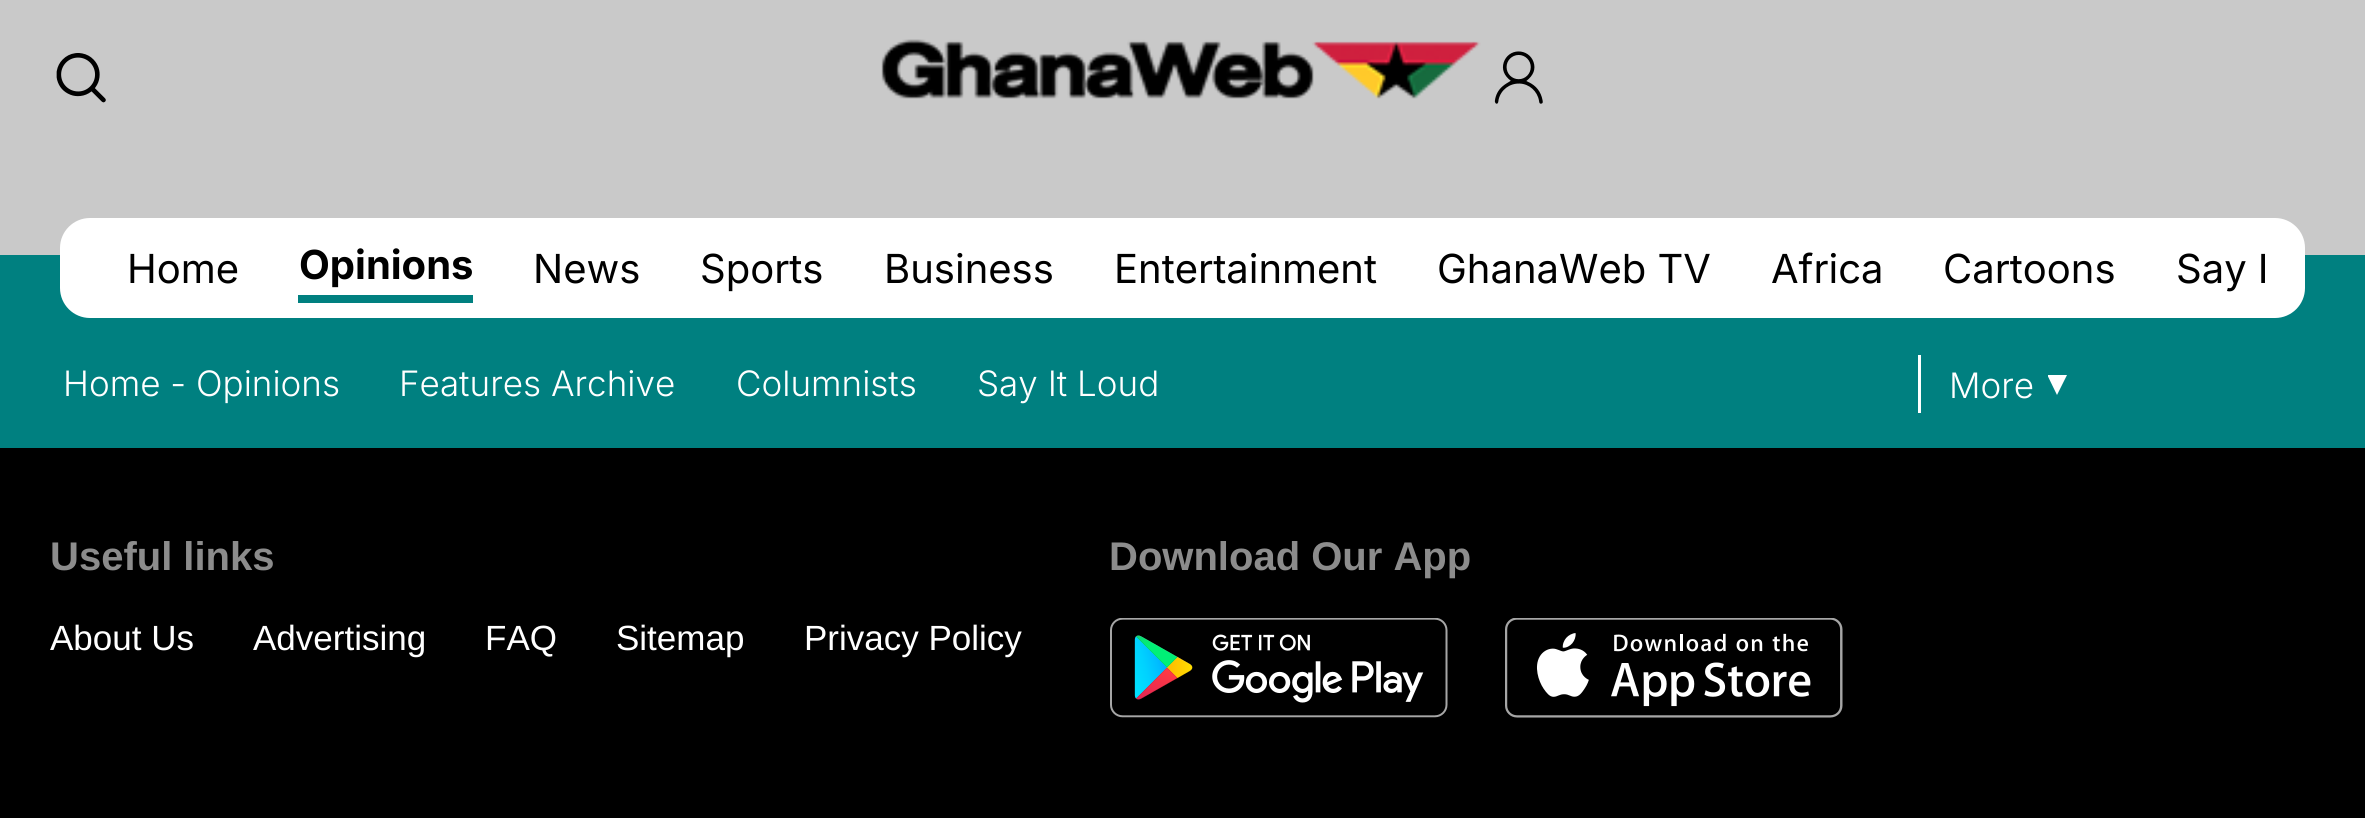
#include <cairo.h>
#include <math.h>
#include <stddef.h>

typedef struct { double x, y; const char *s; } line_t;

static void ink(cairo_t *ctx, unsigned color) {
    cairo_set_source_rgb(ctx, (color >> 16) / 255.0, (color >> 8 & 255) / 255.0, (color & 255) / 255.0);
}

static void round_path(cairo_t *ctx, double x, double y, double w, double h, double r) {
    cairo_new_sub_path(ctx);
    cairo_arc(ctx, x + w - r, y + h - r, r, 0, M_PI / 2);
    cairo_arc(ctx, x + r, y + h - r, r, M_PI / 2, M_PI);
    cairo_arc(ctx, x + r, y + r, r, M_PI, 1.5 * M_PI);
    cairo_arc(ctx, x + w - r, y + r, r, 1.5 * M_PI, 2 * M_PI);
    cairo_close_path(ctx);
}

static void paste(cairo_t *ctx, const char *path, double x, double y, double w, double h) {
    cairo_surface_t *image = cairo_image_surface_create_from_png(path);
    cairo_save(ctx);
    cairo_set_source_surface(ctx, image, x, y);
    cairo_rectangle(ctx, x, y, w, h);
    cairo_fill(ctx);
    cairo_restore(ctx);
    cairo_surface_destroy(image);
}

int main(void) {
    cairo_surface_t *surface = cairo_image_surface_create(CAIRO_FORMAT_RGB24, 2365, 818);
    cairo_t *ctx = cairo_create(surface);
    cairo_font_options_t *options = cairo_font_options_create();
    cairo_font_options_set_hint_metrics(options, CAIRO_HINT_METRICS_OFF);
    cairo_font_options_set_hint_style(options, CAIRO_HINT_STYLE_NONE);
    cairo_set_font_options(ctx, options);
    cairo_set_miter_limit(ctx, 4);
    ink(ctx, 0x000000);
    cairo_paint(ctx);
    ink(ctx, 0xC9C9C9);
    cairo_rectangle(ctx, 0, 0, 2365, 255);
    cairo_fill(ctx);
    paste(ctx, "media/1.png", 56, 53, 50, 50);
    paste(ctx, "media/2.png", 881, 39, 600, 60);
    paste(ctx, "media/3.png", 1494, 51, 49, 53);
    ink(ctx, 0x008080);
    cairo_rectangle(ctx, 0, 255, 2365, 193);
    cairo_fill(ctx);
    ink(ctx, 0xFFFFFF);
    round_path(ctx, 60, 218, 2245, 100, 30);
    cairo_fill(ctx);
    cairo_select_font_face(ctx, "Inter", CAIRO_FONT_SLANT_NORMAL, CAIRO_FONT_WEIGHT_NORMAL);
    cairo_set_font_size(ctx, 40);
    ink(ctx, 0x000000);
    cairo_move_to(ctx, 127, 283);
    cairo_show_text(ctx, "Home");
    ink(ctx, 0x008080);
    cairo_rectangle(ctx, 298, 295, 175, 8);
    cairo_fill(ctx);
    cairo_select_font_face(ctx, "Inter", CAIRO_FONT_SLANT_NORMAL, CAIRO_FONT_WEIGHT_BOLD);
    ink(ctx, 0x000000);
    cairo_move_to(ctx, 299, 279);
    cairo_show_text(ctx, "Opinions");
    cairo_select_font_face(ctx, "Inter", CAIRO_FONT_SLANT_NORMAL, CAIRO_FONT_WEIGHT_NORMAL);
    {
        static const line_t items[] = {
            {533, 283, "News"},
            {700, 283, "Sports"},
            {884, 283, "Business"},
            {1114, 283, "Entertainment"},
            {1437, 283, "GhanaWeb TV"},
            {1771, 283, "Africa"},
            {1943, 283, "Cartoons"},
            {2176, 283, "Say I"},
        };
        for (size_t i = 0; i < sizeof items / sizeof *items; i++) {
            cairo_move_to(ctx, items[i].x, items[i].y);
            cairo_show_text(ctx, items[i].s);
        }
    }
    cairo_select_font_face(ctx, "Inter Light", CAIRO_FONT_SLANT_NORMAL, CAIRO_FONT_WEIGHT_NORMAL);
    cairo_set_font_size(ctx, 35);
    ink(ctx, 0xFFFFFF);
    {
        static const line_t items[] = {
            {63, 396, "Home - Opinions"},
            {399, 396, "Features Archive"},
            {736, 396, "Columnists"},
            {977, 396, "Say It Loud"},
        };
        for (size_t i = 0; i < sizeof items / sizeof *items; i++) {
            cairo_move_to(ctx, items[i].x, items[i].y);
            cairo_show_text(ctx, items[i].s);
        }
    }
    cairo_rectangle(ctx, 1918, 355, 3, 58);
    cairo_fill(ctx);
    cairo_move_to(ctx, 1949, 398);
    cairo_show_text(ctx, "More");
    cairo_new_path(ctx);
    cairo_move_to(ctx, 2048, 375);
    cairo_line_to(ctx, 2048, 376.5);
    cairo_line_to(ctx, 2057, 395);
    cairo_line_to(ctx, 2067, 375);
    cairo_close_path(ctx);
    cairo_fill(ctx);
    cairo_select_font_face(ctx, "Liberation Sans", CAIRO_FONT_SLANT_NORMAL, CAIRO_FONT_WEIGHT_BOLD);
    cairo_set_font_size(ctx, 40);
    ink(ctx, 0x8C8C8C);
    cairo_move_to(ctx, 50, 570);
    cairo_show_text(ctx, "Useful links");
    cairo_select_font_face(ctx, "Liberation Sans", CAIRO_FONT_SLANT_NORMAL, CAIRO_FONT_WEIGHT_NORMAL);
    cairo_set_font_size(ctx, 35);
    ink(ctx, 0xFFFFFF);
    {
        static const line_t items[] = {
            {50, 650, "About Us"},
            {253, 650, "Advertising"},
            {485, 650, "FAQ"},
            {616, 650, "Sitemap"},
            {804, 650, "Privacy Policy"},
        };
        for (size_t i = 0; i < sizeof items / sizeof *items; i++) {
            cairo_move_to(ctx, items[i].x, items[i].y);
            cairo_show_text(ctx, items[i].s);
        }
    }
    cairo_select_font_face(ctx, "Liberation Sans", CAIRO_FONT_SLANT_NORMAL, CAIRO_FONT_WEIGHT_BOLD);
    cairo_set_font_size(ctx, 40);
    ink(ctx, 0x8C8C8C);
    cairo_move_to(ctx, 1109, 570);
    cairo_show_text(ctx, "Download Our App");
    paste(ctx, "media/4.png", 1110, 618, 338, 100);
    paste(ctx, "media/5.png", 1505, 618, 338, 100);
    cairo_surface_write_to_png(surface, "image.png");
    cairo_font_options_destroy(options);
    cairo_destroy(ctx);
    cairo_surface_destroy(surface);
    return 0;
}
